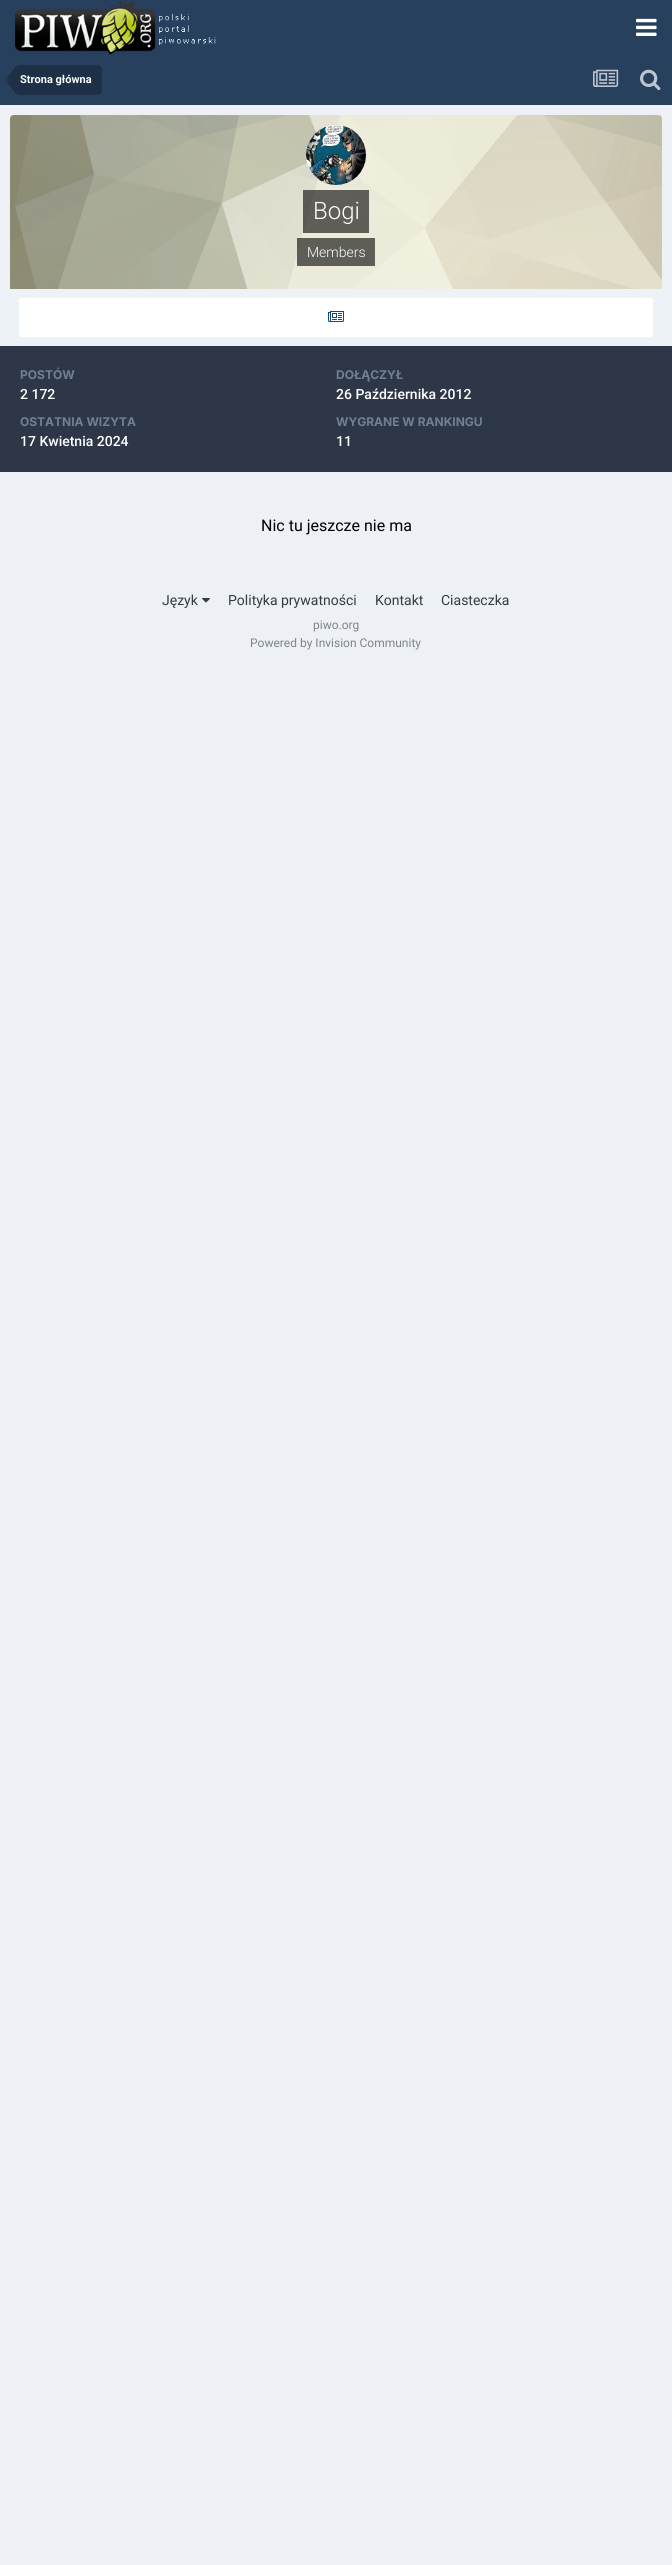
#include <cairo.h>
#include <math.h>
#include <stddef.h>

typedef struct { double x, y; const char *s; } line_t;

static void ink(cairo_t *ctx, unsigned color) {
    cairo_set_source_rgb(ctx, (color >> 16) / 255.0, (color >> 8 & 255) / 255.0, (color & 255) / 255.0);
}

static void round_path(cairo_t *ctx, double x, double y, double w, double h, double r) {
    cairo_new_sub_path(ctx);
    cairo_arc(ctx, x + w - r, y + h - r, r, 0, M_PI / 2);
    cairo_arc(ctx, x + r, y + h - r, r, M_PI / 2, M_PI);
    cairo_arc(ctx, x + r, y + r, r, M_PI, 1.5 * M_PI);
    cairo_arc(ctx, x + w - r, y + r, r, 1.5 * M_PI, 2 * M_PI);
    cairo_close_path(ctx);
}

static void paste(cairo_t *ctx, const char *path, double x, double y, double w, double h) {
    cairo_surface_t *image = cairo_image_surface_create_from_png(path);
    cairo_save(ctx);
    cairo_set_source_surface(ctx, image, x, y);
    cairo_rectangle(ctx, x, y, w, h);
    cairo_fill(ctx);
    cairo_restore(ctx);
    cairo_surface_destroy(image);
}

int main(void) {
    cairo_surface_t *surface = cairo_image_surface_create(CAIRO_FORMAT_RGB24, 672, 2565);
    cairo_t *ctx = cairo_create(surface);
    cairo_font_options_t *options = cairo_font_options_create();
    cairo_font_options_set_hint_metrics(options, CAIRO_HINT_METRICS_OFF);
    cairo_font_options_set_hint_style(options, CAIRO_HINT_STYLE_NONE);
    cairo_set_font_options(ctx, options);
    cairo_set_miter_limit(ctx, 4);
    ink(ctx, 0xEDF0F4);
    cairo_paint(ctx);
    ink(ctx, 0x27405E);
    cairo_rectangle(ctx, 0, 0, 672, 105);
    cairo_fill(ctx);
    paste(ctx, "media/1.png", 15, 0, 201, 55);
    paste(ctx, "media/2.png", 636, 18, 21, 18);
    ink(ctx, 0x1D3047);
    cairo_new_path(ctx);
    cairo_move_to(ctx, 20, 65);
    cairo_line_to(ctx, 97, 65);
    cairo_curve_to(ctx, 100, 65, 102, 67, 102, 70);
    cairo_line_to(ctx, 102, 90);
    cairo_curve_to(ctx, 102, 93, 100, 95, 97, 95);
    cairo_line_to(ctx, 20, 95);
    cairo_close_path(ctx);
    cairo_fill(ctx);
    cairo_new_path(ctx);
    cairo_move_to(ctx, 20, 80);
    cairo_line_to(ctx, 20, 95);
    cairo_curve_to(ctx, 15.5, 95, 13.5, 90.5, 11, 87);
    cairo_curve_to(ctx, 9.5, 85, 7, 83, 7, 80);
    cairo_close_path(ctx);
    cairo_move_to(ctx, 20, 80);
    cairo_line_to(ctx, 7, 80);
    cairo_curve_to(ctx, 7, 77, 9.5, 75, 11, 73);
    cairo_curve_to(ctx, 13.5, 69.5, 15.5, 65, 20, 65);
    cairo_close_path(ctx);
    cairo_fill(ctx);
    cairo_select_font_face(ctx, "Roboto", CAIRO_FONT_SLANT_NORMAL, CAIRO_FONT_WEIGHT_BOLD);
    cairo_set_font_size(ctx, 11);
    ink(ctx, 0xFFFFFF);
    cairo_move_to(ctx, 20, 83);
    cairo_show_text(ctx, "Strona główna");
    paste(ctx, "media/3.png", 593, 69, 26, 18);
    paste(ctx, "media/4.png", 640, 69, 21, 22);
    ink(ctx, 0xFFF799);
    cairo_new_path(ctx);
    cairo_move_to(ctx, 14, 115);
    cairo_line_to(ctx, 658, 115);
    cairo_curve_to(ctx, 660, 115, 662, 117, 662, 119);
    cairo_line_to(ctx, 662, 289);
    cairo_line_to(ctx, 10, 289);
    cairo_line_to(ctx, 10, 119);
    cairo_curve_to(ctx, 10, 117, 12, 115, 14, 115);
    cairo_close_path(ctx);
    cairo_fill(ctx);
    paste(ctx, "media/5.png", 10, 115, 652, 174);
    ink(ctx, 0xFFFFFF);
    cairo_arc(ctx, 336, 155, 30, 0, 2 * M_PI);
    cairo_fill(ctx);
    paste(ctx, "media/6.png", 306, 125, 60, 60);
    cairo_set_source_rgba(ctx, 0, 0, 0, 0.6);
    cairo_rectangle(ctx, 303, 190, 66, 43);
    cairo_fill(ctx);
    cairo_select_font_face(ctx, "Roboto Light", CAIRO_FONT_SLANT_NORMAL, CAIRO_FONT_WEIGHT_NORMAL);
    cairo_set_font_size(ctx, 24);
    ink(ctx, 0xFFFFFF);
    cairo_move_to(ctx, 313, 219);
    cairo_show_text(ctx, "Bogi");
    cairo_set_source_rgba(ctx, 0, 0, 0, 0.6);
    cairo_rectangle(ctx, 297, 238, 78, 28);
    cairo_fill(ctx);
    cairo_set_font_size(ctx, 14);
    ink(ctx, 0xFFFFFF);
    cairo_move_to(ctx, 307, 257);
    cairo_show_text(ctx, "Members");
    ink(ctx, 0xEDF2F7);
    cairo_rectangle(ctx, 10, 289, 652, 57);
    cairo_fill(ctx);
    ink(ctx, 0xFFFFFF);
    round_path(ctx, 18, 297, 636, 41, 4);
    cairo_fill(ctx);
    round_path(ctx, 18.5, 297.5, 635, 40, 3.5);
    cairo_set_source_rgba(ctx, 0.055, 0.298, 0.475, 0.07);
    cairo_set_line_width(ctx, 1);
    cairo_stroke(ctx);
    paste(ctx, "media/7.png", 328, 311, 16, 11);
    ink(ctx, 0x2D3748);
    cairo_rectangle(ctx, 0, 346, 672, 126);
    cairo_fill(ctx);
    cairo_select_font_face(ctx, "Inter", CAIRO_FONT_SLANT_NORMAL, CAIRO_FONT_WEIGHT_BOLD);
    cairo_set_font_size(ctx, 12);
    ink(ctx, 0x718096);
    cairo_move_to(ctx, 20, 379);
    cairo_show_text(ctx, "POSTÓW");
    cairo_select_font_face(ctx, "Roboto Medium", CAIRO_FONT_SLANT_NORMAL, CAIRO_FONT_WEIGHT_NORMAL);
    cairo_set_font_size(ctx, 14);
    ink(ctx, 0xFFFFFF);
    cairo_move_to(ctx, 20, 399);
    cairo_show_text(ctx, "2 172");
    cairo_select_font_face(ctx, "Inter", CAIRO_FONT_SLANT_NORMAL, CAIRO_FONT_WEIGHT_BOLD);
    cairo_set_font_size(ctx, 12);
    ink(ctx, 0x718096);
    cairo_move_to(ctx, 336, 379);
    cairo_show_text(ctx, "DOŁĄCZYŁ");
    cairo_select_font_face(ctx, "Roboto Medium", CAIRO_FONT_SLANT_NORMAL, CAIRO_FONT_WEIGHT_NORMAL);
    cairo_set_font_size(ctx, 14);
    ink(ctx, 0xFFFFFF);
    cairo_move_to(ctx, 336, 399);
    cairo_show_text(ctx, "26 Października 2012");
    cairo_select_font_face(ctx, "Inter", CAIRO_FONT_SLANT_NORMAL, CAIRO_FONT_WEIGHT_BOLD);
    cairo_set_font_size(ctx, 12);
    ink(ctx, 0x718096);
    cairo_move_to(ctx, 20, 426);
    cairo_show_text(ctx, "OSTATNIA WIZYTA");
    cairo_select_font_face(ctx, "Roboto Medium", CAIRO_FONT_SLANT_NORMAL, CAIRO_FONT_WEIGHT_NORMAL);
    cairo_set_font_size(ctx, 14);
    ink(ctx, 0xFFFFFF);
    cairo_move_to(ctx, 20, 446);
    cairo_show_text(ctx, "17 Kwietnia 2024");
    cairo_select_font_face(ctx, "Inter", CAIRO_FONT_SLANT_NORMAL, CAIRO_FONT_WEIGHT_BOLD);
    cairo_set_font_size(ctx, 12);
    ink(ctx, 0x718096);
    cairo_move_to(ctx, 336, 426);
    cairo_show_text(ctx, "WYGRANE W RANKINGU");
    cairo_select_font_face(ctx, "Roboto Medium", CAIRO_FONT_SLANT_NORMAL, CAIRO_FONT_WEIGHT_NORMAL);
    cairo_set_font_size(ctx, 14);
    ink(ctx, 0xFFFFFF);
    cairo_move_to(ctx, 336, 446);
    cairo_show_text(ctx, "11");
    cairo_select_font_face(ctx, "Roboto", CAIRO_FONT_SLANT_NORMAL, CAIRO_FONT_WEIGHT_NORMAL);
    cairo_set_font_size(ctx, 16);
    ink(ctx, 0x000000);
    cairo_move_to(ctx, 261, 531);
    cairo_show_text(ctx, "Nic tu jeszcze nie ma");
    cairo_set_font_size(ctx, 14);
    ink(ctx, 0x353C41);
    cairo_move_to(ctx, 162, 605);
    cairo_show_text(ctx, "Język");
    paste(ctx, "media/8.png", 202, 598, 8, 5);
    {
        static const line_t items[] = {
            {228, 605, "Polityka prywatności"},
            {375, 605, "Kontakt"},
            {441, 605, "Ciasteczka"},
        };
        for (size_t i = 0; i < sizeof items / sizeof *items; i++) {
            cairo_move_to(ctx, items[i].x, items[i].y);
            cairo_show_text(ctx, items[i].s);
        }
    }
    cairo_set_font_size(ctx, 12);
    ink(ctx, 0x7F8489);
    cairo_move_to(ctx, 313, 629);
    cairo_show_text(ctx, "piwo.org");
    cairo_move_to(ctx, 250, 647);
    cairo_show_text(ctx, "Powered by Invision Community");
    cairo_surface_write_to_png(surface, "image.png");
    cairo_font_options_destroy(options);
    cairo_destroy(ctx);
    cairo_surface_destroy(surface);
    return 0;
}
